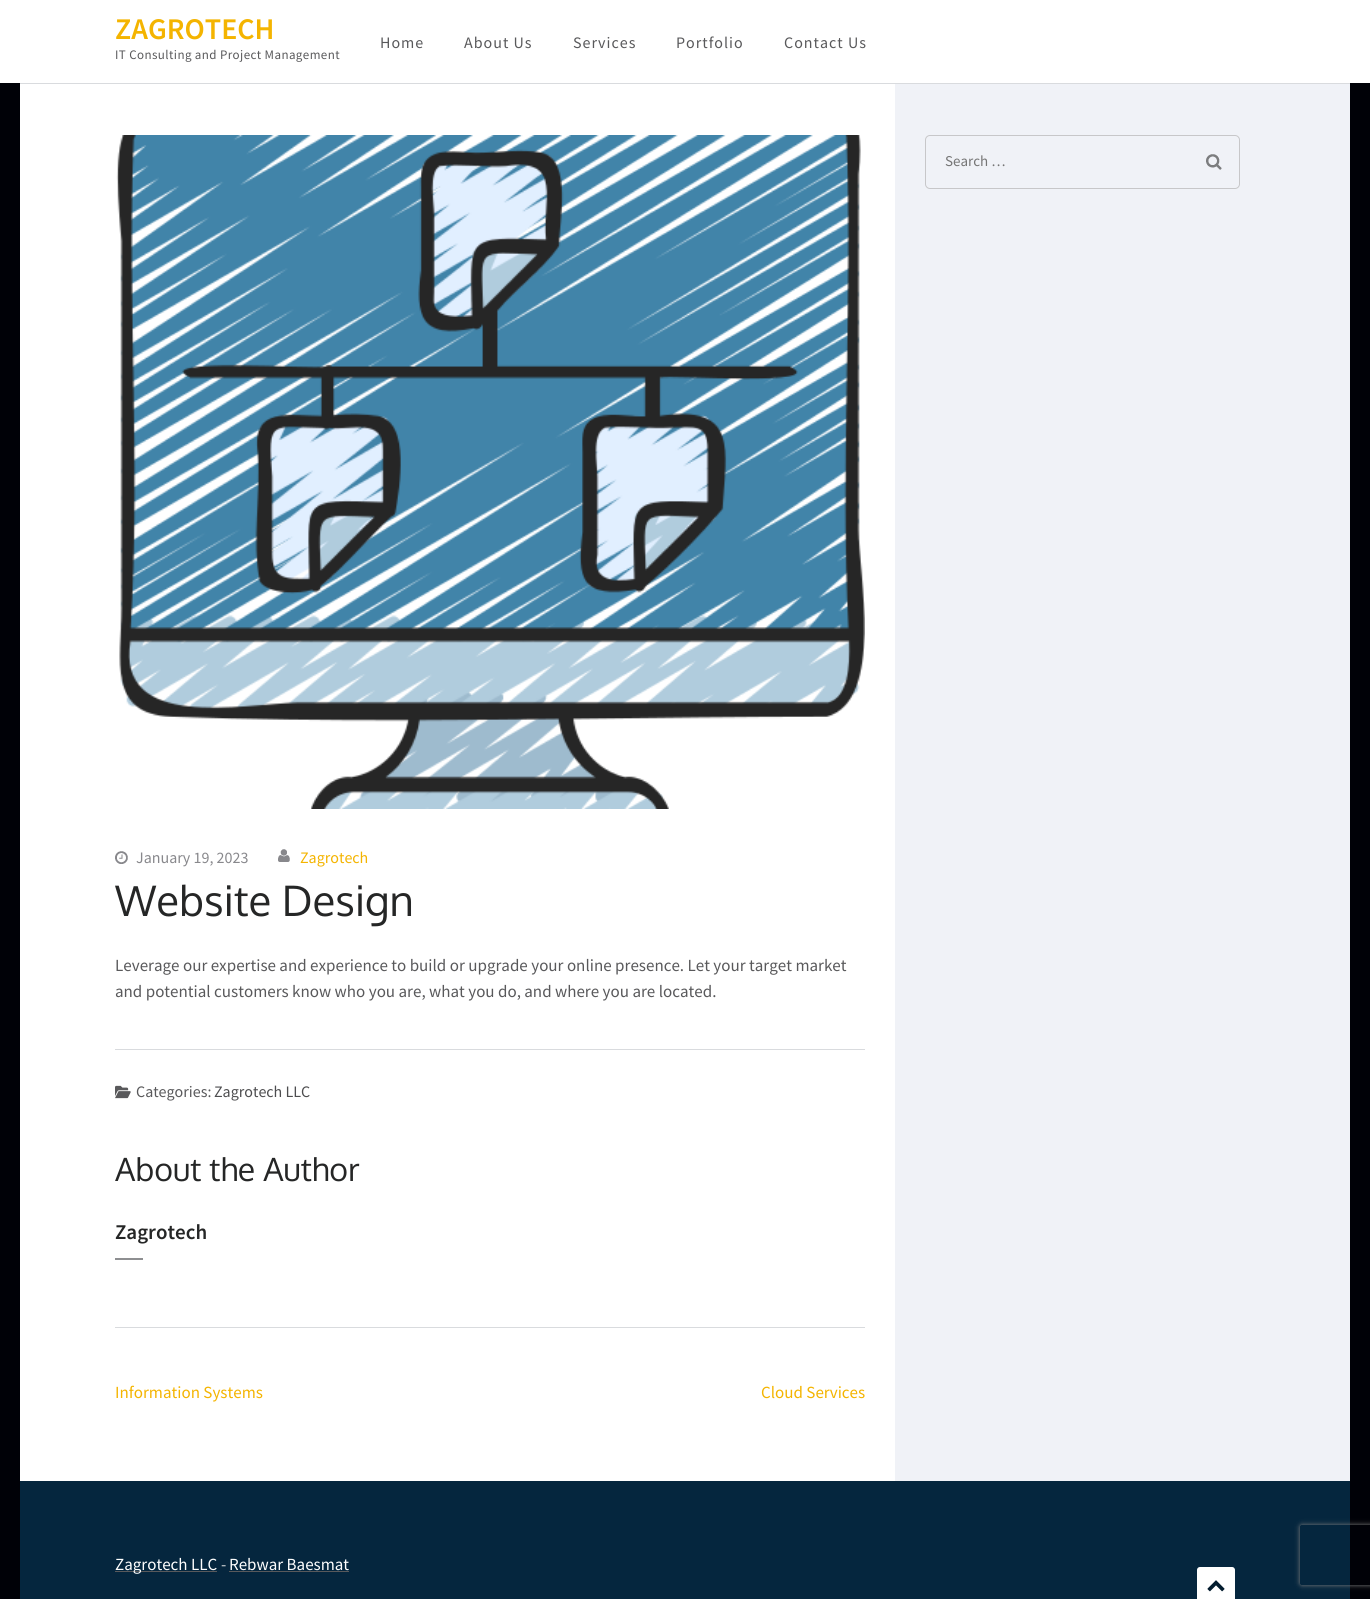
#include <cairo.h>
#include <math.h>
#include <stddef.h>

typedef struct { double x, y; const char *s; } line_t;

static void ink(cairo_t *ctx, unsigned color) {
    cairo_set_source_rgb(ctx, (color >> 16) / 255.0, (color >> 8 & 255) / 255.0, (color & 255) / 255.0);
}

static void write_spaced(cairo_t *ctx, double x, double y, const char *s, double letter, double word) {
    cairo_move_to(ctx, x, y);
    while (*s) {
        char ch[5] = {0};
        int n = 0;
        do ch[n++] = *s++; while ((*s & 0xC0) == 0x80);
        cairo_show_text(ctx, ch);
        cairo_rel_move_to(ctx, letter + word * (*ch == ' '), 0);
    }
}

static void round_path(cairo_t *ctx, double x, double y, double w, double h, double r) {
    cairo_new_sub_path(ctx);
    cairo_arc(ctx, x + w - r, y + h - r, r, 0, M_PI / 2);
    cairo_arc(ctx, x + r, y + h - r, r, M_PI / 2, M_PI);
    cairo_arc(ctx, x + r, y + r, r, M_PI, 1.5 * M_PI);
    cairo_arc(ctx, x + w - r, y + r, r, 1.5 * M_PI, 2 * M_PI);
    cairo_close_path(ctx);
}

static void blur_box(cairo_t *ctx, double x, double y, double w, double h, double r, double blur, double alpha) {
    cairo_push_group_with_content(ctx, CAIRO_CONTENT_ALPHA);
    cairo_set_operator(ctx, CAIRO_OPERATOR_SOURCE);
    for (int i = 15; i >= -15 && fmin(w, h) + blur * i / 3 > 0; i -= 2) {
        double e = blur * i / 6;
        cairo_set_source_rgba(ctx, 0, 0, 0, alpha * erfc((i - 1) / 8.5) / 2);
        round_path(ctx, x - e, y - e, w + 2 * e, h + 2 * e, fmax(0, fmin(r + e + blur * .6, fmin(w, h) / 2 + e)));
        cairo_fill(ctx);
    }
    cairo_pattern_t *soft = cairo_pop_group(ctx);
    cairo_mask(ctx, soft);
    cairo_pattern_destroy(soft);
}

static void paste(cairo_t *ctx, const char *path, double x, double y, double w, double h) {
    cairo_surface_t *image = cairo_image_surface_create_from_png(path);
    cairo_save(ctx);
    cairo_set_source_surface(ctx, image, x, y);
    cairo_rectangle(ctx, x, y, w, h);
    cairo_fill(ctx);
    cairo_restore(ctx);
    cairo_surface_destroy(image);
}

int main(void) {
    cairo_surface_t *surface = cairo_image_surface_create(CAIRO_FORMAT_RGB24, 1370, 1599);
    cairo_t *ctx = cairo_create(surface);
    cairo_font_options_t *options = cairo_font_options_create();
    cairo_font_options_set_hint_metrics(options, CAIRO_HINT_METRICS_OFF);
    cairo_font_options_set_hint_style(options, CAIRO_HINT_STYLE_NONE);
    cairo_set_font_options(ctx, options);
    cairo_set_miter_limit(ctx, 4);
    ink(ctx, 0x000107);
    cairo_paint(ctx);
    ink(ctx, 0xFFFFFF);
    cairo_rectangle(ctx, 20, 84, 875, 1397);
    cairo_fill(ctx);
    cairo_rectangle(ctx, 0, 0, 1370, 83);
    cairo_fill(ctx);
    cairo_select_font_face(ctx, "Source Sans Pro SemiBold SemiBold", CAIRO_FONT_SLANT_NORMAL, CAIRO_FONT_WEIGHT_NORMAL);
    cairo_set_font_size(ctx, 30);
    ink(ctx, 0xF4B400);
    cairo_move_to(ctx, 115, 39);
    cairo_show_text(ctx, "ZAGROTECH");
    cairo_select_font_face(ctx, "Source Sans Pro", CAIRO_FONT_SLANT_NORMAL, CAIRO_FONT_WEIGHT_NORMAL);
    cairo_set_font_size(ctx, 13);
    ink(ctx, 0x59595B);
    write_spaced(ctx, 115, 59, "IT Consulting and Project Management", 0.4, 0);
    cairo_set_font_size(ctx, 16);
    {
        static const line_t items[] = {
            {380, 48, "Home"},
            {464, 48, "About Us"},
            {573, 48, "Services"},
            {676, 48, "Portfolio"},
            {784, 48, "Contact Us"},
        };
        for (size_t i = 0; i < sizeof items / sizeof *items; i++) {
            write_spaced(ctx, items[i].x, items[i].y, items[i].s, 1, 0);
        }
    }
    ink(ctx, 0xD9DBDE);
    cairo_rectangle(ctx, 20, 83, 1330, 1);
    cairo_fill(ctx);
    ink(ctx, 0xF0F2F7);
    cairo_rectangle(ctx, 895, 84, 455, 1397);
    cairo_fill(ctx);
    round_path(ctx, 925.5, 135.5, 314, 53, 4.5);
    ink(ctx, 0xC7C7C9);
    cairo_set_line_width(ctx, 1);
    cairo_stroke(ctx);
    cairo_set_font_size(ctx, 15);
    ink(ctx, 0x757575);
    cairo_move_to(ctx, 945, 166);
    cairo_show_text(ctx, "Search …");
    paste(ctx, "media/1.png", 1206, 154, 16, 16);
    paste(ctx, "media/2.png", 116, 135, 749, 674);
    paste(ctx, "media/3.png", 115, 851, 13, 13);
    cairo_set_font_size(ctx, 16);
    ink(ctx, 0x88888C);
    cairo_move_to(ctx, 136, 863);
    cairo_show_text(ctx, "January 19, 2023");
    paste(ctx, "media/4.png", 278, 849, 12, 13);
    ink(ctx, 0xF4B400);
    cairo_move_to(ctx, 300, 863);
    cairo_show_text(ctx, "Zagrotech");
    cairo_select_font_face(ctx, "Oxygen", CAIRO_FONT_SLANT_NORMAL, CAIRO_FONT_WEIGHT_NORMAL);
    cairo_set_font_size(ctx, 42);
    ink(ctx, 0x252626);
    cairo_move_to(ctx, 115, 916);
    cairo_show_text(ctx, "Website Design");
    cairo_select_font_face(ctx, "Source Sans Pro", CAIRO_FONT_SLANT_NORMAL, CAIRO_FONT_WEIGHT_NORMAL);
    cairo_set_font_size(ctx, 17);
    ink(ctx, 0x59595B);
    cairo_move_to(ctx, 115, 971);
    cairo_show_text(ctx, "Leverage our expertise and experience to build or upgrade your online presence. Let your target market");
    cairo_move_to(ctx, 115, 997);
    cairo_show_text(ctx, "and potential customers know who you are, what you do, and where you are located.");
    ink(ctx, 0xD9DBDE);
    cairo_rectangle(ctx, 115, 1049, 750, 1);
    cairo_fill(ctx);
    paste(ctx, "media/5.png", 115, 1085, 16, 14);
    cairo_set_font_size(ctx, 16);
    ink(ctx, 0x59595B);
    cairo_move_to(ctx, 136, 1097);
    cairo_show_text(ctx, "Categories:");
    ink(ctx, 0x4D4D4F);
    cairo_move_to(ctx, 214, 1097);
    cairo_show_text(ctx, "Zagrotech LLC");
    ink(ctx, 0xD9DBDE);
    cairo_rectangle(ctx, 115, 1327, 750, 1);
    cairo_fill(ctx);
    cairo_select_font_face(ctx, "Oxygen", CAIRO_FONT_SLANT_NORMAL, CAIRO_FONT_WEIGHT_NORMAL);
    cairo_set_font_size(ctx, 32);
    ink(ctx, 0x252626);
    cairo_move_to(ctx, 115, 1181);
    cairo_show_text(ctx, "About the Author");
    cairo_select_font_face(ctx, "Source Sans Pro SemiBold SemiBold", CAIRO_FONT_SLANT_NORMAL, CAIRO_FONT_WEIGHT_NORMAL);
    cairo_set_font_size(ctx, 21);
    cairo_move_to(ctx, 115, 1239);
    cairo_show_text(ctx, "Zagrotech");
    ink(ctx, 0x8E8F91);
    cairo_rectangle(ctx, 115, 1258, 28, 2);
    cairo_fill(ctx);
    cairo_select_font_face(ctx, "Source Sans Pro", CAIRO_FONT_SLANT_NORMAL, CAIRO_FONT_WEIGHT_NORMAL);
    cairo_set_font_size(ctx, 17);
    ink(ctx, 0xF4B400);
    cairo_move_to(ctx, 115, 1398);
    cairo_show_text(ctx, "Information Systems");
    cairo_move_to(ctx, 761, 1398);
    cairo_show_text(ctx, "Cloud Services");
    ink(ctx, 0x05263E);
    cairo_rectangle(ctx, 20, 1481, 1330, 118);
    cairo_fill(ctx);
    ink(ctx, 0x59595B);
    cairo_rectangle(ctx, 115, 1571, 102, 1);
    cairo_fill(ctx);
    ink(ctx, 0xFFFFFF);
    cairo_move_to(ctx, 115, 1570);
    cairo_show_text(ctx, "Zagrotech LLC");
    ink(ctx, 0xD3D7D9);
    cairo_move_to(ctx, 221, 1570);
    cairo_show_text(ctx, "-");
    ink(ctx, 0xFFFFFF);
    cairo_move_to(ctx, 229, 1570);
    cairo_show_text(ctx, "Rebwar Baesmat");
    ink(ctx, 0x59595B);
    cairo_rectangle(ctx, 229, 1571, 120, 1);
    cairo_fill(ctx);
    paste(ctx, "media/6.png", 1197, 1567, 38, 32);
    cairo_save(ctx);
    cairo_set_fill_rule(ctx, CAIRO_FILL_RULE_EVEN_ODD);
    cairo_new_path(ctx);
    cairo_move_to(ctx, 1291, 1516);
    cairo_line_to(ctx, 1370, 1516);
    cairo_line_to(ctx, 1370, 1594);
    cairo_line_to(ctx, 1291, 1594);
    cairo_close_path(ctx);
    cairo_move_to(ctx, 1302, 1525);
    cairo_line_to(ctx, 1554, 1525);
    cairo_curve_to(ctx, 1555, 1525, 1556, 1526, 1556, 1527);
    cairo_line_to(ctx, 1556, 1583);
    cairo_curve_to(ctx, 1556, 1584, 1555, 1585, 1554, 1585);
    cairo_line_to(ctx, 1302, 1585);
    cairo_curve_to(ctx, 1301, 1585, 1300, 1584, 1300, 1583);
    cairo_line_to(ctx, 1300, 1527);
    cairo_curve_to(ctx, 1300, 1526, 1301, 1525, 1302, 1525);
    cairo_close_path(ctx);
    cairo_clip(ctx);
    ink(ctx, 0x808080);
    blur_box(ctx, 1300, 1525, 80, 60, 2, 2.5, 1);
    cairo_restore(ctx);
    cairo_surface_write_to_png(surface, "image.png");
    cairo_font_options_destroy(options);
    cairo_destroy(ctx);
    cairo_surface_destroy(surface);
    return 0;
}
